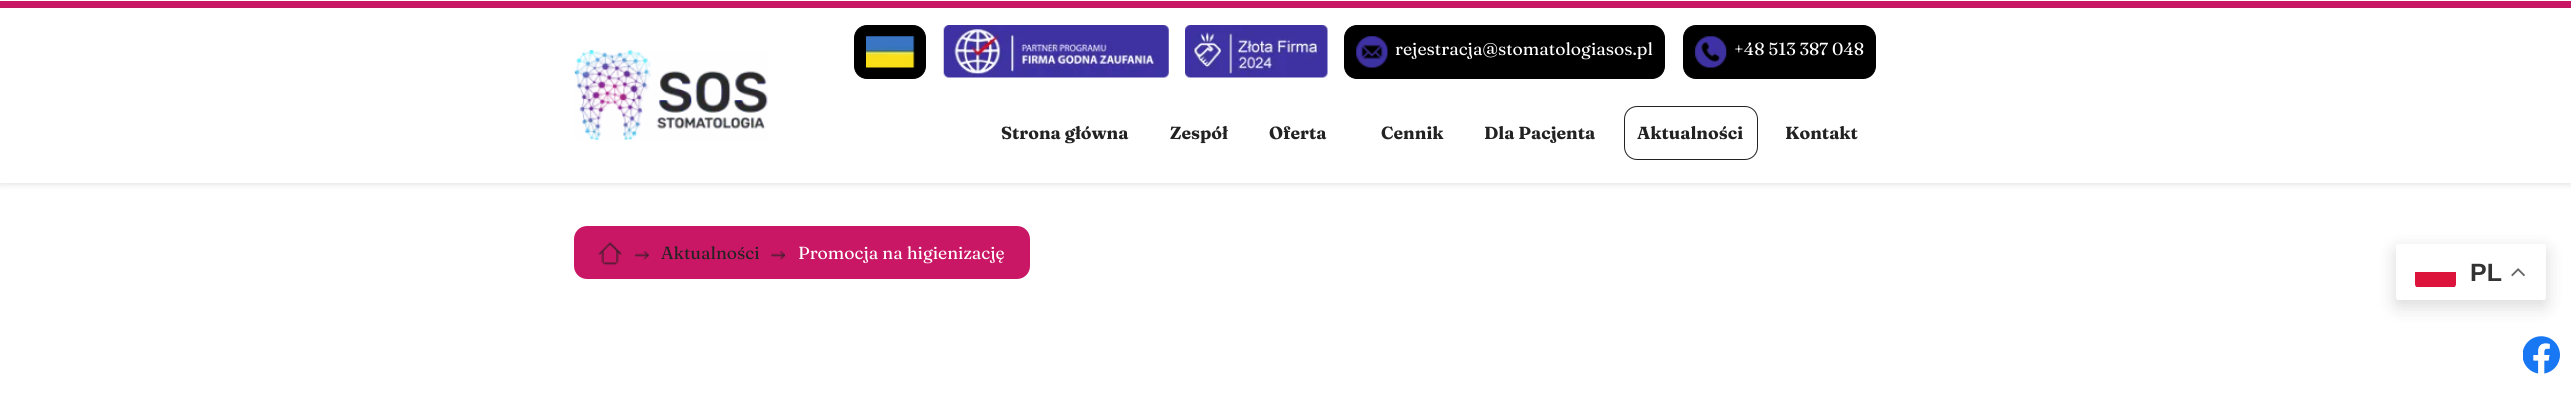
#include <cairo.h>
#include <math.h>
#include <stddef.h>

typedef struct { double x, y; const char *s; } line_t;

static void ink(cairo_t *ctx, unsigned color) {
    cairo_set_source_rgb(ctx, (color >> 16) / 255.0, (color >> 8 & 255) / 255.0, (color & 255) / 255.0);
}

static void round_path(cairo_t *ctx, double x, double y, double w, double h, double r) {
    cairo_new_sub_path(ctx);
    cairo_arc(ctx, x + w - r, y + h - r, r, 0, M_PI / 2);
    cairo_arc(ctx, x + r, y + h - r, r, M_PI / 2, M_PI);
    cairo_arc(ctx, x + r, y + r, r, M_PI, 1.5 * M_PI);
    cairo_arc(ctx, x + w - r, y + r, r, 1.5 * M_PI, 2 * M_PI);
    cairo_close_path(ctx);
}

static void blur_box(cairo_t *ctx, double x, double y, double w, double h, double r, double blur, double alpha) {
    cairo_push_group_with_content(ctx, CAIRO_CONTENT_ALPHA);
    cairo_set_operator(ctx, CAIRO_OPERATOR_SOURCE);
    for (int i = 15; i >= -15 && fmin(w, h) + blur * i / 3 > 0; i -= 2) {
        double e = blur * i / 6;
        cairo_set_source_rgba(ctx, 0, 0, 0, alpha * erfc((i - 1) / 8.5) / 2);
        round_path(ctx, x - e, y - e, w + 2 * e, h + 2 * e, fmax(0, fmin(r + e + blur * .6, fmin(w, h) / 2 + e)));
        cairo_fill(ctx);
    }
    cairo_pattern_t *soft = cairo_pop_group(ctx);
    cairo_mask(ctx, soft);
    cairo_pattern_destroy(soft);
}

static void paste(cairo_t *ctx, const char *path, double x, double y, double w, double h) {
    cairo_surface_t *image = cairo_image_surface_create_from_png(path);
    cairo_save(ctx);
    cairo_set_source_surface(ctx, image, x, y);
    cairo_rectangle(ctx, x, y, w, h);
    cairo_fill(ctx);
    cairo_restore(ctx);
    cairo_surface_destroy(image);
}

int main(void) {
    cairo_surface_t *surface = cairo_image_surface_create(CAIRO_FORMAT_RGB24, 2571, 406);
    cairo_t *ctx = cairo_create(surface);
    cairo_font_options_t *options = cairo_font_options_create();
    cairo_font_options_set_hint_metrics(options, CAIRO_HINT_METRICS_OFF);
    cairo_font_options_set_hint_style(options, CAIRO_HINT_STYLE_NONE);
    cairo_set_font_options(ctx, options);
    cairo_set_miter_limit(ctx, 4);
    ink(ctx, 0xFFFFFF);
    cairo_paint(ctx);
    ink(ctx, 0xCA1765);
    round_path(ctx, 574, 226, 456, 53, 13);
    cairo_fill(ctx);
    paste(ctx, "media/1.png", 598, 242, 24, 24);
    paste(ctx, "media/2.png", 635, 251, 14, 9);
    cairo_select_font_face(ctx, "Fraunces", CAIRO_FONT_SLANT_NORMAL, CAIRO_FONT_WEIGHT_NORMAL);
    cairo_set_font_size(ctx, 17.5);
    ink(ctx, 0x222222);
    cairo_move_to(ctx, 661, 259);
    cairo_show_text(ctx, "Aktualności");
    paste(ctx, "media/3.png", 771, 251, 14, 9);
    ink(ctx, 0xFFFFFF);
    cairo_move_to(ctx, 798, 259);
    cairo_show_text(ctx, "Promocja na higienizację");
    ink(ctx, 0xCA1765);
    cairo_rectangle(ctx, 0, 1, 2571, 7);
    cairo_fill(ctx);
    cairo_save(ctx);
    cairo_set_fill_rule(ctx, CAIRO_FILL_RULE_EVEN_ODD);
    cairo_new_path(ctx);
    cairo_move_to(ctx, 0, 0);
    cairo_line_to(ctx, 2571, 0);
    cairo_line_to(ctx, 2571, 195);
    cairo_line_to(ctx, 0, 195);
    cairo_close_path(ctx);
    cairo_move_to(ctx, 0, 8);
    cairo_line_to(ctx, 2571, 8);
    cairo_line_to(ctx, 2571, 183);
    cairo_line_to(ctx, 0, 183);
    cairo_close_path(ctx);
    cairo_clip(ctx);
    ink(ctx, 0x000000);
    blur_box(ctx, 0, 10, 2571, 175, 0, 3, 0.1);
    cairo_restore(ctx);
    cairo_set_source_rgba(ctx, 1, 1, 1, 0.95);
    cairo_rectangle(ctx, 0, 182, 2571, 1);
    cairo_fill(ctx);
    paste(ctx, "media/4.png", 574, 50, 194, 90);
    ink(ctx, 0x000000);
    round_path(ctx, 854.5, 25.5, 71, 53, 12.5);
    cairo_fill_preserve(ctx);
    cairo_set_line_width(ctx, 1);
    cairo_stroke(ctx);
    paste(ctx, "media/5.png", 866, 36, 49, 32);
    paste(ctx, "media/6.png", 943, 25, 226, 53);
    paste(ctx, "media/7.png", 1185, 25, 143, 53);
    round_path(ctx, 1344.5, 25.5, 320, 53, 12.5);
    cairo_fill_preserve(ctx);
    cairo_stroke(ctx);
    paste(ctx, "media/8.png", 1356, 36, 32, 32);
    ink(ctx, 0xFFFFFF);
    cairo_move_to(ctx, 1395, 55);
    cairo_show_text(ctx, "rejestracja@stomatologiasos.pl");
    ink(ctx, 0x000000);
    round_path(ctx, 1683.5, 25.5, 192, 53, 12.5);
    cairo_fill_preserve(ctx);
    cairo_stroke(ctx);
    paste(ctx, "media/9.png", 1694, 36, 33, 32);
    ink(ctx, 0xFFFFFF);
    cairo_move_to(ctx, 1734, 55);
    cairo_show_text(ctx, "+48 513 387 048");
    cairo_select_font_face(ctx, "Fraunces", CAIRO_FONT_SLANT_NORMAL, CAIRO_FONT_WEIGHT_BOLD);
    ink(ctx, 0x222222);
    {
        static const line_t items[] = {
            {1001, 139, "Strona główna"},
            {1170, 139, "Zespół"},
            {1269, 139, "Oferta"},
            {1381, 139, "Cennik"},
            {1484, 139, "Dla Pacjenta"},
        };
        for (size_t i = 0; i < sizeof items / sizeof *items; i++) {
            cairo_move_to(ctx, items[i].x, items[i].y);
            cairo_show_text(ctx, items[i].s);
        }
    }
    round_path(ctx, 1624.5, 106.5, 133, 53, 12.5);
    cairo_stroke(ctx);
    cairo_move_to(ctx, 1637, 139);
    cairo_show_text(ctx, "Aktualności");
    cairo_move_to(ctx, 1785, 139);
    cairo_show_text(ctx, "Kontakt");
    ink(ctx, 0x000000);
    blur_box(ctx, 2396, 250, 150, 56, 2.5, 9.5, 0.15);
    ink(ctx, 0xFFFFFF);
    round_path(ctx, 2396, 244, 150, 56, 2.5);
    cairo_fill(ctx);
    cairo_save(ctx);
    round_path(ctx, 2415, 256, 41, 32, 4);
    cairo_clip(ctx);
    ink(ctx, 0xDC143C);
    cairo_rectangle(ctx, 2415, 272, 41, 15);
    cairo_fill(ctx);
    cairo_restore(ctx);
    cairo_select_font_face(ctx, "Liberation Sans", CAIRO_FONT_SLANT_NORMAL, CAIRO_FONT_WEIGHT_BOLD);
    cairo_set_font_size(ctx, 25);
    ink(ctx, 0x333333);
    cairo_move_to(ctx, 2470, 281);
    cairo_show_text(ctx, "PL");
    paste(ctx, "media/10.png", 2511, 268, 14, 9);
    paste(ctx, "media/11.png", 2523, 336, 37, 38);
    cairo_surface_write_to_png(surface, "image.png");
    cairo_font_options_destroy(options);
    cairo_destroy(ctx);
    cairo_surface_destroy(surface);
    return 0;
}
